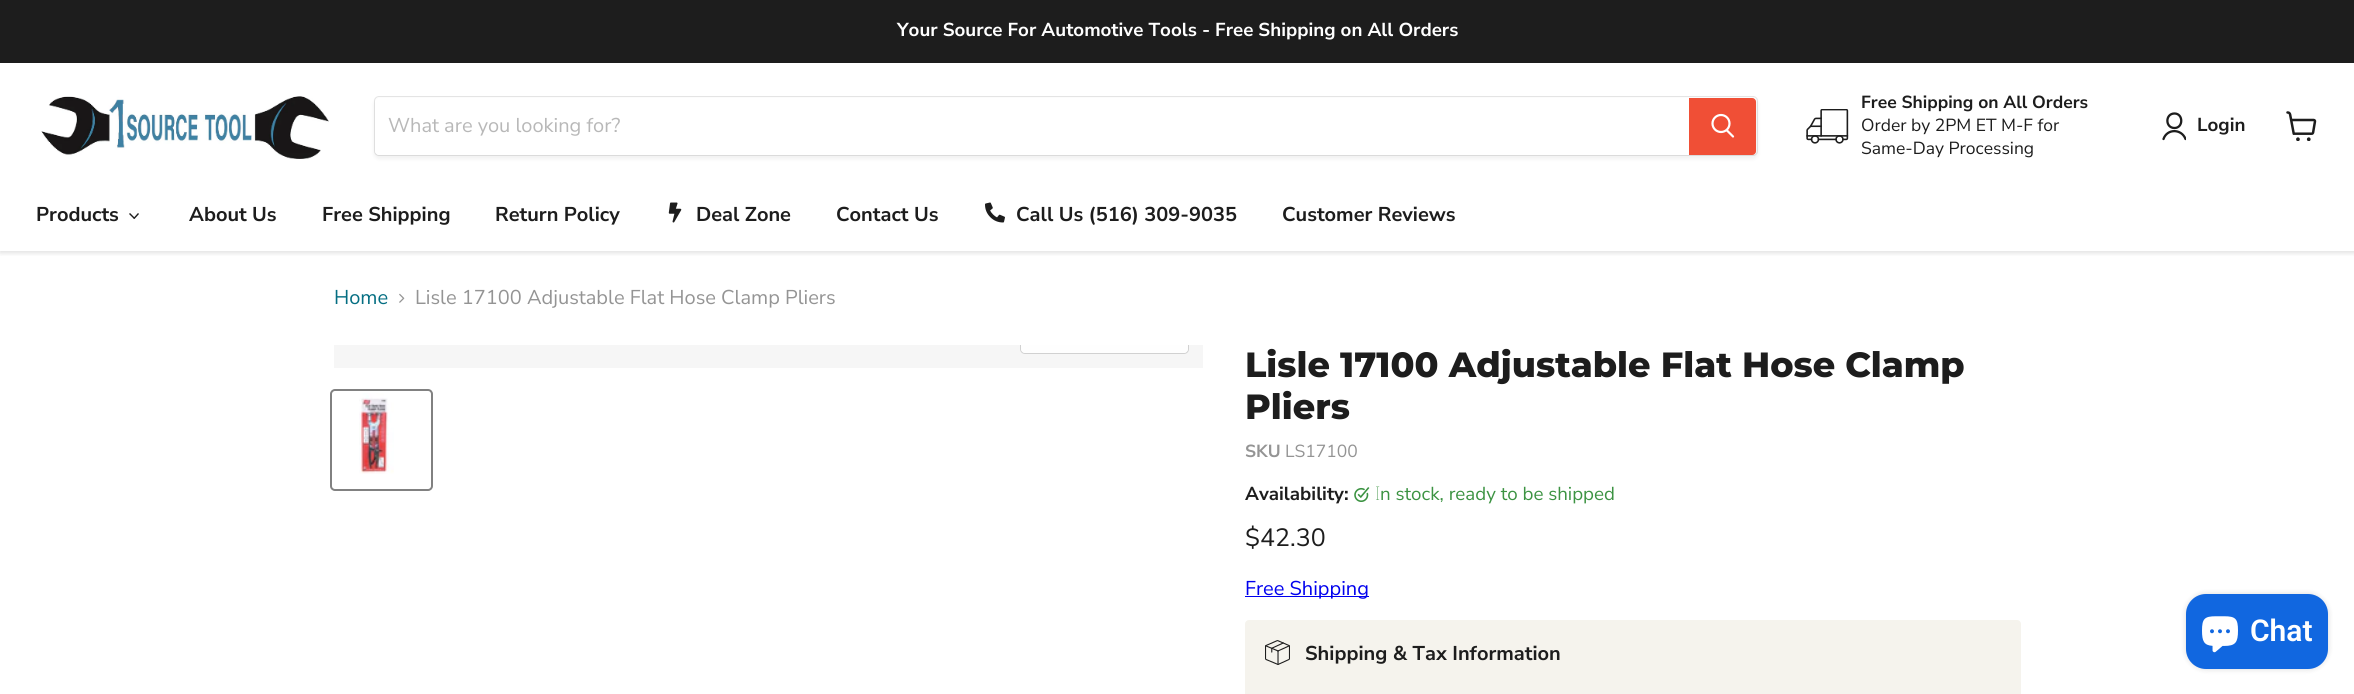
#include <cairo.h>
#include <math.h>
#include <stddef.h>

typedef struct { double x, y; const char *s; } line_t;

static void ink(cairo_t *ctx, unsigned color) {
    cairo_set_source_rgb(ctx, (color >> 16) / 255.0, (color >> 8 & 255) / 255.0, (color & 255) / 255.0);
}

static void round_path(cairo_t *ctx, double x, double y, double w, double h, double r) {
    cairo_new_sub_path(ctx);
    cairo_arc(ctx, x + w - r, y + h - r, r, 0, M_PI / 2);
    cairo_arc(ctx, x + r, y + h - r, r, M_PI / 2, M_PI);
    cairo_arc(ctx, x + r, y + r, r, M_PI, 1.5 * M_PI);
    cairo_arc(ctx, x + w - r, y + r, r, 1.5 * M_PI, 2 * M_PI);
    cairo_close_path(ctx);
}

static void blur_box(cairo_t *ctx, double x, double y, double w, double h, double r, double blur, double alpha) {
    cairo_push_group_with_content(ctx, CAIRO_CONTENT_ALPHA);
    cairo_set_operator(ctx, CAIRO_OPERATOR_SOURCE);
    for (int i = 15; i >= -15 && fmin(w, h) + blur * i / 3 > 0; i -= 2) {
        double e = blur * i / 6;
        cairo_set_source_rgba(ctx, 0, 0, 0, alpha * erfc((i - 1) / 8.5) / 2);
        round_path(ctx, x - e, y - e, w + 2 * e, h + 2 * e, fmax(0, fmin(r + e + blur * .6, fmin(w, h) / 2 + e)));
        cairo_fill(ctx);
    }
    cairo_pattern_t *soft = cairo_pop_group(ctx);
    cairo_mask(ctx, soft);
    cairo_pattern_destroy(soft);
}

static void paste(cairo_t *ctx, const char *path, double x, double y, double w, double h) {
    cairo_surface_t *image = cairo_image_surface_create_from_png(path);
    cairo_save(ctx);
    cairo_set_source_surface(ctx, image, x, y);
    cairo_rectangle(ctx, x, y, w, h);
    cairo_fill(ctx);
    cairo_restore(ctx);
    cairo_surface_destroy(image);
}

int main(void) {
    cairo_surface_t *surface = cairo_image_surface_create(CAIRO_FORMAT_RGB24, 2354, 694);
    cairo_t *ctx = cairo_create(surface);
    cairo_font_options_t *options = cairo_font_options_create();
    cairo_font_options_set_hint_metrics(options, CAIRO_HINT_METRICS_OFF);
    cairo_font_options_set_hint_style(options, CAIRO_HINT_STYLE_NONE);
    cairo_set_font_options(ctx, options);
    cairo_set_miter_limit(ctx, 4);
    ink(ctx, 0xFFFFFF);
    cairo_paint(ctx);
    cairo_save(ctx);
    cairo_rectangle(ctx, 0, 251, 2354, 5);
    cairo_clip(ctx);
    ink(ctx, 0x808080);
    blur_box(ctx, 0, 64, 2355, 189, 0, 2.5, 0.25);
    cairo_restore(ctx);
    ink(ctx, 0x1D1D1D);
    cairo_rectangle(ctx, 0, 0, 2354, 63);
    cairo_fill(ctx);
    cairo_select_font_face(ctx, "Nunito Sans", CAIRO_FONT_SLANT_NORMAL, CAIRO_FONT_WEIGHT_BOLD);
    cairo_set_font_size(ctx, 18.75);
    ink(ctx, 0xFFFFFF);
    cairo_move_to(ctx, 897, 36);
    cairo_show_text(ctx, "Your Source For Automotive Tools - Free Shipping on All Orders");
    paste(ctx, "media/1.png", 41, 96, 288, 63);
    ink(ctx, 0x808080);
    blur_box(ctx, 374, 99, 1384, 60, 5, 2, 0.11);
    round_path(ctx, 374.5, 96.5, 1383, 59, 4.5);
    cairo_set_source_rgba(ctx, 0.502, 0.502, 0.502, 0.2);
    cairo_set_line_width(ctx, 1);
    cairo_stroke(ctx);
    ink(ctx, 0xFFFFFF);
    cairo_new_path(ctx);
    cairo_move_to(ctx, 379, 98);
    cairo_line_to(ctx, 1689, 98);
    cairo_line_to(ctx, 1689, 155);
    cairo_line_to(ctx, 379, 155);
    cairo_curve_to(ctx, 377, 155, 375, 153, 375, 151);
    cairo_line_to(ctx, 375, 102);
    cairo_curve_to(ctx, 375, 100, 377, 98, 379, 98);
    cairo_close_path(ctx);
    cairo_fill(ctx);
    cairo_select_font_face(ctx, "Nunito Sans", CAIRO_FONT_SLANT_NORMAL, CAIRO_FONT_WEIGHT_NORMAL);
    cairo_set_font_size(ctx, 20);
    ink(ctx, 0xB8B8B8);
    cairo_move_to(ctx, 388, 132);
    cairo_show_text(ctx, "What are you looking for?");
    ink(ctx, 0xF04F36);
    cairo_new_path(ctx);
    cairo_move_to(ctx, 1689.5, 98.5);
    cairo_line_to(ctx, 1752, 98.5);
    cairo_curve_to(ctx, 1754, 98.5, 1755.5, 100, 1755.5, 102);
    cairo_line_to(ctx, 1755.5, 151);
    cairo_curve_to(ctx, 1755.5, 153, 1754, 154.5, 1752, 154.5);
    cairo_line_to(ctx, 1689.5, 154.5);
    cairo_close_path(ctx);
    cairo_fill_preserve(ctx);
    cairo_stroke(ctx);
    cairo_new_path(ctx);
    cairo_move_to(ctx, 1733, 136.5);
    cairo_line_to(ctx, 1727, 130.5);
    ink(ctx, 0xFFFFFF);
    cairo_set_line_width(ctx, 2.2);
    cairo_set_line_cap(ctx, CAIRO_LINE_CAP_ROUND);
    cairo_stroke(ctx);
    cairo_arc(ctx, 1721, 123.5, 8.5, 0, 2 * M_PI);
    cairo_set_line_cap(ctx, CAIRO_LINE_CAP_BUTT);
    cairo_stroke(ctx);
    paste(ctx, "media/2.png", 1806, 109, 43, 35);
    cairo_select_font_face(ctx, "Nunito Sans", CAIRO_FONT_SLANT_NORMAL, CAIRO_FONT_WEIGHT_BOLD);
    cairo_set_font_size(ctx, 17.5);
    ink(ctx, 0x1D1D1D);
    cairo_move_to(ctx, 1861, 108);
    cairo_show_text(ctx, "Free Shipping on All Orders");
    cairo_select_font_face(ctx, "Nunito Sans", CAIRO_FONT_SLANT_NORMAL, CAIRO_FONT_WEIGHT_NORMAL);
    cairo_move_to(ctx, 1861, 131);
    cairo_show_text(ctx, "Order by 2PM ET M-F for");
    cairo_move_to(ctx, 1861, 154);
    cairo_show_text(ctx, "Same-Day Processing");
    cairo_new_path(ctx);
    cairo_move_to(ctx, 2174.5, 128);
    cairo_curve_to(ctx, 2183.5, 128, 2183.5, 113.5, 2174.5, 113.5);
    cairo_curve_to(ctx, 2165, 113.5, 2165, 128, 2174.5, 128);
    cairo_close_path(ctx);
    cairo_set_line_width(ctx, 2.3);
    cairo_set_line_cap(ctx, CAIRO_LINE_CAP_ROUND);
    cairo_set_line_join(ctx, CAIRO_LINE_JOIN_ROUND);
    cairo_stroke(ctx);
    cairo_save(ctx);
    cairo_rectangle(ctx, 2161, 111, 25, 30);
    cairo_clip(ctx);
    cairo_new_path(ctx);
    cairo_move_to(ctx, 2185.5, 139);
    cairo_curve_to(ctx, 2181.5, 128.5, 2167, 128.5, 2163.5, 139);
    cairo_stroke(ctx);
    cairo_restore(ctx);
    cairo_select_font_face(ctx, "Nunito Sans", CAIRO_FONT_SLANT_NORMAL, CAIRO_FONT_WEIGHT_BOLD);
    cairo_set_font_size(ctx, 18.75);
    cairo_move_to(ctx, 2197, 131);
    cairo_show_text(ctx, "Login");
    paste(ctx, "media/3.png", 2286, 111, 31, 30);
    cairo_set_font_size(ctx, 20);
    cairo_move_to(ctx, 36, 221);
    cairo_show_text(ctx, "Products");
    cairo_new_path(ctx);
    cairo_move_to(ctx, 138, 213);
    cairo_line_to(ctx, 139, 214);
    cairo_line_to(ctx, 134.5, 219);
    cairo_line_to(ctx, 133.5, 218);
    cairo_close_path(ctx);
    cairo_fill(ctx);
    cairo_new_path(ctx);
    cairo_move_to(ctx, 130, 213);
    cairo_line_to(ctx, 135, 218);
    cairo_line_to(ctx, 134, 219);
    cairo_line_to(ctx, 129, 214);
    cairo_close_path(ctx);
    cairo_fill(ctx);
    {
        static const line_t items[] = {
            {189, 221, "About Us"},
            {322, 221, "Free Shipping"},
            {495, 221, "Return Policy"},
        };
        for (size_t i = 0; i < sizeof items / sizeof *items; i++) {
            cairo_move_to(ctx, items[i].x, items[i].y);
            cairo_show_text(ctx, items[i].s);
        }
    }
    paste(ctx, "media/4.png", 668, 202, 14, 21);
    cairo_move_to(ctx, 696, 221);
    cairo_show_text(ctx, "Deal Zone");
    cairo_move_to(ctx, 836, 221);
    cairo_show_text(ctx, "Contact Us");
    paste(ctx, "media/5.png", 985, 202, 20, 21);
    cairo_move_to(ctx, 1016, 221);
    cairo_show_text(ctx, "Call Us (516) 309-9035");
    cairo_move_to(ctx, 1282, 221);
    cairo_show_text(ctx, "Customer Reviews");
    cairo_select_font_face(ctx, "Nunito Sans", CAIRO_FONT_SLANT_NORMAL, CAIRO_FONT_WEIGHT_NORMAL);
    ink(ctx, 0x046E82);
    cairo_move_to(ctx, 334, 304);
    cairo_show_text(ctx, "Home");
    paste(ctx, "media/6.png", 399, 293, 6, 10);
    ink(ctx, 0x949494);
    cairo_move_to(ctx, 415, 304);
    cairo_show_text(ctx, "Lisle 17100 Adjustable Flat Hose Clamp Pliers");
    ink(ctx, 0xF6F6F6);
    cairo_rectangle(ctx, 334, 345, 869, 23);
    cairo_fill(ctx);
    cairo_save(ctx);
    cairo_rectangle(ctx, 334, 345, 869, 23);
    cairo_clip(ctx);
    round_path(ctx, 1020.5, 316.5, 168, 37, 4.5);
    ink(ctx, 0xD1D1D1);
    cairo_set_line_width(ctx, 1);
    cairo_set_line_cap(ctx, CAIRO_LINE_CAP_BUTT);
    cairo_set_line_join(ctx, CAIRO_LINE_JOIN_MITER);
    cairo_stroke(ctx);
    cairo_restore(ctx);
    cairo_set_source_rgba(ctx, 1, 1, 1, 0.9);
    cairo_new_path(ctx);
    cairo_move_to(ctx, 1021, 345);
    cairo_line_to(ctx, 1188, 345);
    cairo_line_to(ctx, 1188, 349);
    cairo_curve_to(ctx, 1188, 351, 1186, 353, 1184, 353);
    cairo_line_to(ctx, 1025, 353);
    cairo_curve_to(ctx, 1023, 353, 1021, 351, 1021, 349);
    cairo_close_path(ctx);
    cairo_fill(ctx);
    round_path(ctx, 331, 390, 101, 100, 4);
    ink(ctx, 0x818181);
    cairo_set_line_width(ctx, 2);
    cairo_set_line_cap(ctx, CAIRO_LINE_CAP_BUTT);
    cairo_set_line_join(ctx, CAIRO_LINE_JOIN_MITER);
    cairo_stroke(ctx);
    paste(ctx, "media/7.png", 359, 393, 35, 81);
    cairo_select_font_face(ctx, "Montserrat ExtraBold", CAIRO_FONT_SLANT_NORMAL, CAIRO_FONT_WEIGHT_NORMAL);
    cairo_set_font_size(ctx, 35);
    ink(ctx, 0x1D1D1D);
    cairo_move_to(ctx, 1245, 377);
    cairo_show_text(ctx, "Lisle 17100 Adjustable Flat Hose Clamp");
    cairo_move_to(ctx, 1245, 419);
    cairo_show_text(ctx, "Pliers");
    cairo_select_font_face(ctx, "Nunito Sans", CAIRO_FONT_SLANT_NORMAL, CAIRO_FONT_WEIGHT_BOLD);
    cairo_set_font_size(ctx, 17.5);
    ink(ctx, 0x949494);
    cairo_move_to(ctx, 1245, 457);
    cairo_show_text(ctx, "SKU");
    cairo_select_font_face(ctx, "Nunito Sans", CAIRO_FONT_SLANT_NORMAL, CAIRO_FONT_WEIGHT_NORMAL);
    cairo_move_to(ctx, 1285, 457);
    cairo_show_text(ctx, "LS17100");
    cairo_select_font_face(ctx, "Nunito Sans", CAIRO_FONT_SLANT_NORMAL, CAIRO_FONT_WEIGHT_BOLD);
    cairo_set_font_size(ctx, 18.75);
    ink(ctx, 0x1D1D1D);
    cairo_move_to(ctx, 1245, 500);
    cairo_show_text(ctx, "Availability:");
    paste(ctx, "media/8.png", 1354, 487, 16, 15);
    cairo_select_font_face(ctx, "Noto Sans Thin", CAIRO_FONT_SLANT_NORMAL, CAIRO_FONT_WEIGHT_NORMAL);
    ink(ctx, 0x3C9342);
    cairo_move_to(ctx, 1375, 500);
    cairo_show_text(ctx, "I");
    cairo_select_font_face(ctx, "Nunito Sans", CAIRO_FONT_SLANT_NORMAL, CAIRO_FONT_WEIGHT_NORMAL);
    cairo_move_to(ctx, 1380, 500);
    cairo_show_text(ctx, "n stock, ready to be shipped");
    cairo_set_font_size(ctx, 25);
    ink(ctx, 0x1D1D1D);
    cairo_move_to(ctx, 1245, 546);
    cairo_show_text(ctx, "$42.30");
    ink(ctx, 0x0000EE);
    cairo_rectangle(ctx, 1245, 596, 124, 1);
    cairo_fill(ctx);
    cairo_set_font_size(ctx, 20);
    cairo_move_to(ctx, 1245, 595);
    cairo_show_text(ctx, "Free Shipping");
    ink(ctx, 0xF5F3ED);
    round_path(ctx, 1245, 620, 776, 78, 4);
    cairo_fill(ctx);
    paste(ctx, "media/9.png", 1265, 640, 25, 25);
    cairo_select_font_face(ctx, "Nunito Sans", CAIRO_FONT_SLANT_NORMAL, CAIRO_FONT_WEIGHT_BOLD);
    ink(ctx, 0x1D1D1D);
    cairo_move_to(ctx, 1305, 660);
    cairo_show_text(ctx, "Shipping & Tax Information");
    ink(ctx, 0x000000);
    blur_box(ctx, 2186, 594, 142, 75, 20, 3, 0.15);
    ink(ctx, 0x1167E0);
    round_path(ctx, 2186, 594, 142, 75, 20);
    cairo_fill(ctx);
    paste(ctx, "media/10.png", 2202, 616, 36, 37);
    cairo_select_font_face(ctx, "Roboto SemiBold", CAIRO_FONT_SLANT_NORMAL, CAIRO_FONT_WEIGHT_NORMAL);
    cairo_set_font_size(ctx, 30);
    ink(ctx, 0xFFFFFF);
    cairo_move_to(ctx, 2250, 641);
    cairo_show_text(ctx, "Chat");
    cairo_surface_write_to_png(surface, "image.png");
    cairo_font_options_destroy(options);
    cairo_destroy(ctx);
    cairo_surface_destroy(surface);
    return 0;
}
